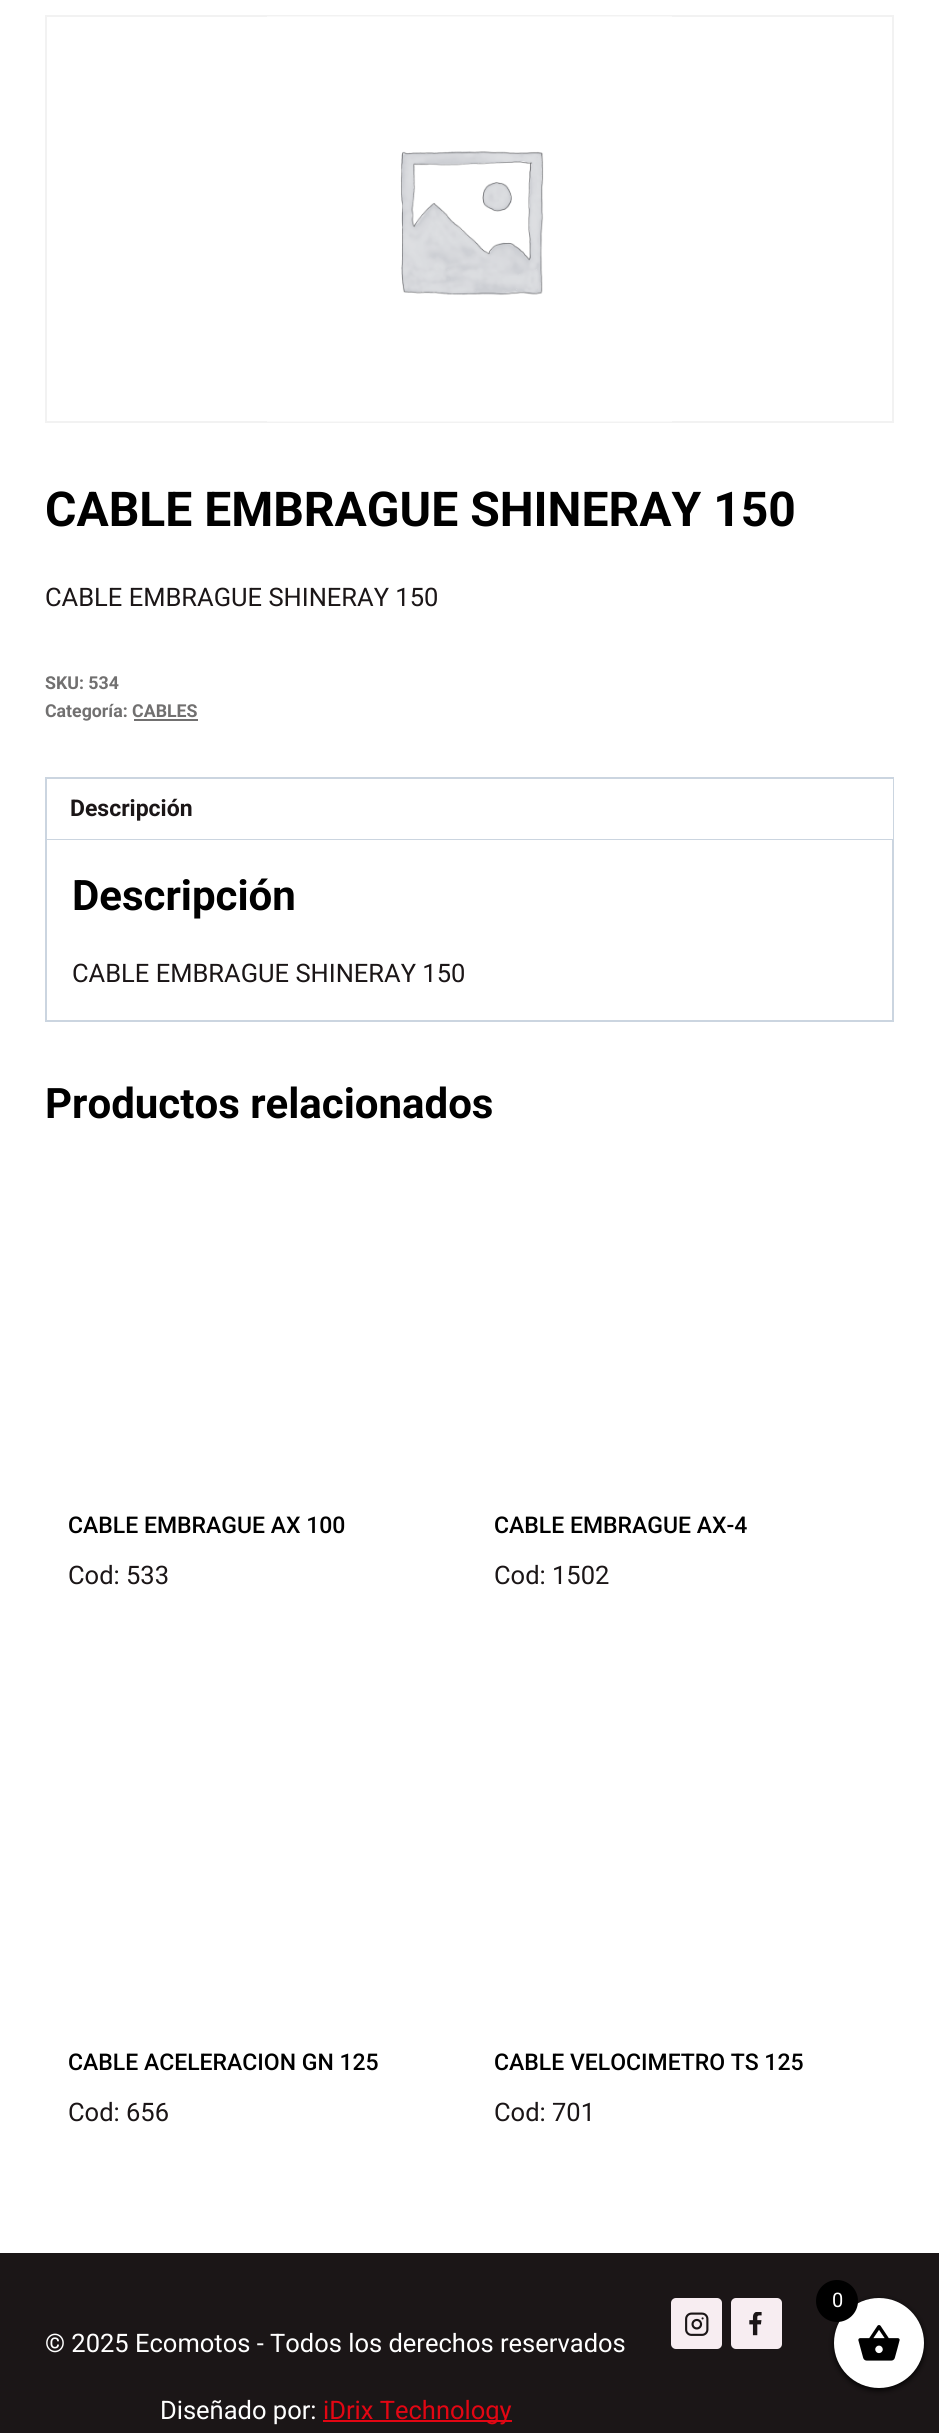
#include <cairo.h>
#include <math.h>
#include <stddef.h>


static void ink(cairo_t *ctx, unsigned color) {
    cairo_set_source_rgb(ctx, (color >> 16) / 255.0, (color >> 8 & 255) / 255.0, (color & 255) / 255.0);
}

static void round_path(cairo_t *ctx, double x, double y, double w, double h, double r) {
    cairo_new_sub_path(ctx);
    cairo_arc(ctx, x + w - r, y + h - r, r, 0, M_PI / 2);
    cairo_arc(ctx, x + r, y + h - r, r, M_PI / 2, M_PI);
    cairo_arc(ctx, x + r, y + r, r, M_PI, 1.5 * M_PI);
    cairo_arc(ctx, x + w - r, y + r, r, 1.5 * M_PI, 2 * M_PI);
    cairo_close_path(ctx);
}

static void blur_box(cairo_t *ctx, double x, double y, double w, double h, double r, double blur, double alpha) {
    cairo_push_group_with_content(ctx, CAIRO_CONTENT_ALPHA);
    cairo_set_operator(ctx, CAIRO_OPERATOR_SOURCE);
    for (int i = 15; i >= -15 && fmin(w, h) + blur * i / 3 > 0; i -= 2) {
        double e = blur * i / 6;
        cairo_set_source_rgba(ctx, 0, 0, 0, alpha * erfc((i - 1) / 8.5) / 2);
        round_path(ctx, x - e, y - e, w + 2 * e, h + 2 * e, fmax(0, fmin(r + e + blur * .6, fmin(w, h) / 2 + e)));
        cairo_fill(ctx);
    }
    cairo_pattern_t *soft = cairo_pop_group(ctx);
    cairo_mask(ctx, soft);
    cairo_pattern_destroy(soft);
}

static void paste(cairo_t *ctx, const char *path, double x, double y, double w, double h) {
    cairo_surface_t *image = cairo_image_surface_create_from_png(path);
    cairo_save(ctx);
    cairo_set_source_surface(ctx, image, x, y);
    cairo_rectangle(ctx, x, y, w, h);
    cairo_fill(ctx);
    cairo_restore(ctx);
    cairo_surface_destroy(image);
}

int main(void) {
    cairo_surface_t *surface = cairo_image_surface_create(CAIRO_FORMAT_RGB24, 939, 2433);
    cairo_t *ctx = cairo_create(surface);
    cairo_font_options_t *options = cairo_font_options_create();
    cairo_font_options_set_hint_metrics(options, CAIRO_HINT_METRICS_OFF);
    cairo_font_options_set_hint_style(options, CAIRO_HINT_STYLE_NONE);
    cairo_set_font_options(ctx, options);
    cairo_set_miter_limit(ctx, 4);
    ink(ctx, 0xFFFFFF);
    cairo_paint(ctx);
    cairo_rectangle(ctx, 46, 16, 847, 406);
    ink(ctx, 0xF2F2F2);
    cairo_stroke(ctx);
    paste(ctx, "media/1.png", 267, 16, 405, 406);
    cairo_select_font_face(ctx, "Roboto", CAIRO_FONT_SLANT_NORMAL, CAIRO_FONT_WEIGHT_BOLD);
    cairo_set_font_size(ctx, 48);
    ink(ctx, 0x000000);
    cairo_move_to(ctx, 45, 526);
    cairo_show_text(ctx, "CABLE EMBRAGUE SHINERAY 150");
    cairo_select_font_face(ctx, "Roboto", CAIRO_FONT_SLANT_NORMAL, CAIRO_FONT_WEIGHT_NORMAL);
    cairo_set_font_size(ctx, 25.5);
    ink(ctx, 0x1B1617);
    cairo_move_to(ctx, 45, 606);
    cairo_show_text(ctx, "CABLE EMBRAGUE SHINERAY 150");
    cairo_select_font_face(ctx, "Roboto", CAIRO_FONT_SLANT_NORMAL, CAIRO_FONT_WEIGHT_BOLD);
    cairo_set_font_size(ctx, 17.75);
    ink(ctx, 0x717070);
    cairo_move_to(ctx, 45, 689);
    cairo_show_text(ctx, "SKU: 534");
    cairo_move_to(ctx, 45, 717);
    cairo_show_text(ctx, "Categoría: CABLES");
    cairo_rectangle(ctx, 134, 719, 64, 2);
    cairo_fill(ctx);
    cairo_rectangle(ctx, 46, 778, 847, 243);
    ink(ctx, 0xCBD5E0);
    cairo_stroke(ctx);
    ink(ctx, 0xFFFFFF);
    cairo_rectangle(ctx, 892, 779, 1, 60);
    cairo_fill(ctx);
    ink(ctx, 0xCBD5E0);
    cairo_rectangle(ctx, 47, 839, 846, 1);
    cairo_fill(ctx);
    cairo_set_font_size(ctx, 23);
    ink(ctx, 0x1B1617);
    cairo_move_to(ctx, 70, 816);
    cairo_show_text(ctx, "Descripción");
    cairo_set_font_size(ctx, 42);
    ink(ctx, 0x000000);
    cairo_move_to(ctx, 72, 910);
    cairo_show_text(ctx, "Descripción");
    cairo_select_font_face(ctx, "Roboto", CAIRO_FONT_SLANT_NORMAL, CAIRO_FONT_WEIGHT_NORMAL);
    cairo_set_font_size(ctx, 25.5);
    ink(ctx, 0x1B1617);
    cairo_move_to(ctx, 72, 982);
    cairo_show_text(ctx, "CABLE EMBRAGUE SHINERAY 150");
    cairo_select_font_face(ctx, "Roboto", CAIRO_FONT_SLANT_NORMAL, CAIRO_FONT_WEIGHT_BOLD);
    cairo_set_font_size(ctx, 42);
    ink(ctx, 0x000000);
    cairo_move_to(ctx, 45, 1118);
    cairo_show_text(ctx, "Productos relacionados");
    cairo_select_font_face(ctx, "Roboto Medium", CAIRO_FONT_SLANT_NORMAL, CAIRO_FONT_WEIGHT_NORMAL);
    cairo_set_font_size(ctx, 23);
    cairo_move_to(ctx, 68, 1533);
    cairo_show_text(ctx, "CABLE EMBRAGUE AX 100");
    cairo_select_font_face(ctx, "Roboto", CAIRO_FONT_SLANT_NORMAL, CAIRO_FONT_WEIGHT_NORMAL);
    cairo_set_font_size(ctx, 25.5);
    ink(ctx, 0x1B1617);
    cairo_move_to(ctx, 68, 1584);
    cairo_show_text(ctx, "Cod: 533");
    cairo_select_font_face(ctx, "Roboto Medium", CAIRO_FONT_SLANT_NORMAL, CAIRO_FONT_WEIGHT_NORMAL);
    cairo_set_font_size(ctx, 23);
    ink(ctx, 0x000000);
    cairo_move_to(ctx, 494, 1533);
    cairo_show_text(ctx, "CABLE EMBRAGUE AX-4");
    cairo_select_font_face(ctx, "Roboto", CAIRO_FONT_SLANT_NORMAL, CAIRO_FONT_WEIGHT_NORMAL);
    cairo_set_font_size(ctx, 25.5);
    ink(ctx, 0x1B1617);
    cairo_move_to(ctx, 494, 1584);
    cairo_show_text(ctx, "Cod: 1502");
    cairo_select_font_face(ctx, "Roboto Medium", CAIRO_FONT_SLANT_NORMAL, CAIRO_FONT_WEIGHT_NORMAL);
    cairo_set_font_size(ctx, 23);
    ink(ctx, 0x000000);
    cairo_move_to(ctx, 68, 2070);
    cairo_show_text(ctx, "CABLE ACELERACION GN 125");
    cairo_select_font_face(ctx, "Roboto", CAIRO_FONT_SLANT_NORMAL, CAIRO_FONT_WEIGHT_NORMAL);
    cairo_set_font_size(ctx, 25.5);
    ink(ctx, 0x1B1617);
    cairo_move_to(ctx, 68, 2121);
    cairo_show_text(ctx, "Cod: 656");
    cairo_select_font_face(ctx, "Roboto Medium", CAIRO_FONT_SLANT_NORMAL, CAIRO_FONT_WEIGHT_NORMAL);
    cairo_set_font_size(ctx, 23);
    ink(ctx, 0x000000);
    cairo_move_to(ctx, 494, 2070);
    cairo_show_text(ctx, "CABLE VELOCIMETRO TS 125");
    cairo_select_font_face(ctx, "Roboto", CAIRO_FONT_SLANT_NORMAL, CAIRO_FONT_WEIGHT_NORMAL);
    cairo_set_font_size(ctx, 25.5);
    ink(ctx, 0x1B1617);
    cairo_move_to(ctx, 494, 2121);
    cairo_show_text(ctx, "Cod: 701");
    cairo_rectangle(ctx, 0, 2253, 939, 180);
    cairo_fill(ctx);
    ink(ctx, 0xF7EDF1);
    round_path(ctx, 671, 2298, 51, 51, 5);
    cairo_fill(ctx);
    paste(ctx, "media/2.png", 685, 2312, 24, 24);
    round_path(ctx, 731, 2298, 51, 51, 5);
    cairo_fill(ctx);
    paste(ctx, "media/3.png", 749, 2312, 13, 24);
    ink(ctx, 0xFFFFFF);
    cairo_move_to(ctx, 45, 2352);
    cairo_show_text(ctx, "© 2025 Ecomotos - Todos los derechos reservados");
    cairo_move_to(ctx, 160, 2419);
    cairo_show_text(ctx, "Diseñado por:");
    ink(ctx, 0xE30613);
    cairo_rectangle(ctx, 323, 2420, 189, 2);
    cairo_fill(ctx);
    cairo_move_to(ctx, 323, 2419);
    cairo_show_text(ctx, "iDrix Technology");
    ink(ctx, 0x000000);
    blur_box(ctx, 834, 2300, 90, 90, 45, 3, 1);
    ink(ctx, 0xFFFFFF);
    cairo_arc(ctx, 879, 2343, 45, 0, 2 * M_PI);
    cairo_fill(ctx);
    ink(ctx, 0x000000);
    cairo_arc(ctx, 837, 2301, 21, 0, 2 * M_PI);
    cairo_fill(ctx);
    cairo_set_font_size(ctx, 20);
    ink(ctx, 0xFFFFFF);
    cairo_move_to(ctx, 832, 2307);
    cairo_show_text(ctx, "0");
    paste(ctx, "media/4.png", 858, 2325, 42, 36);
    cairo_surface_write_to_png(surface, "image.png");
    cairo_font_options_destroy(options);
    cairo_destroy(ctx);
    cairo_surface_destroy(surface);
    return 0;
}
